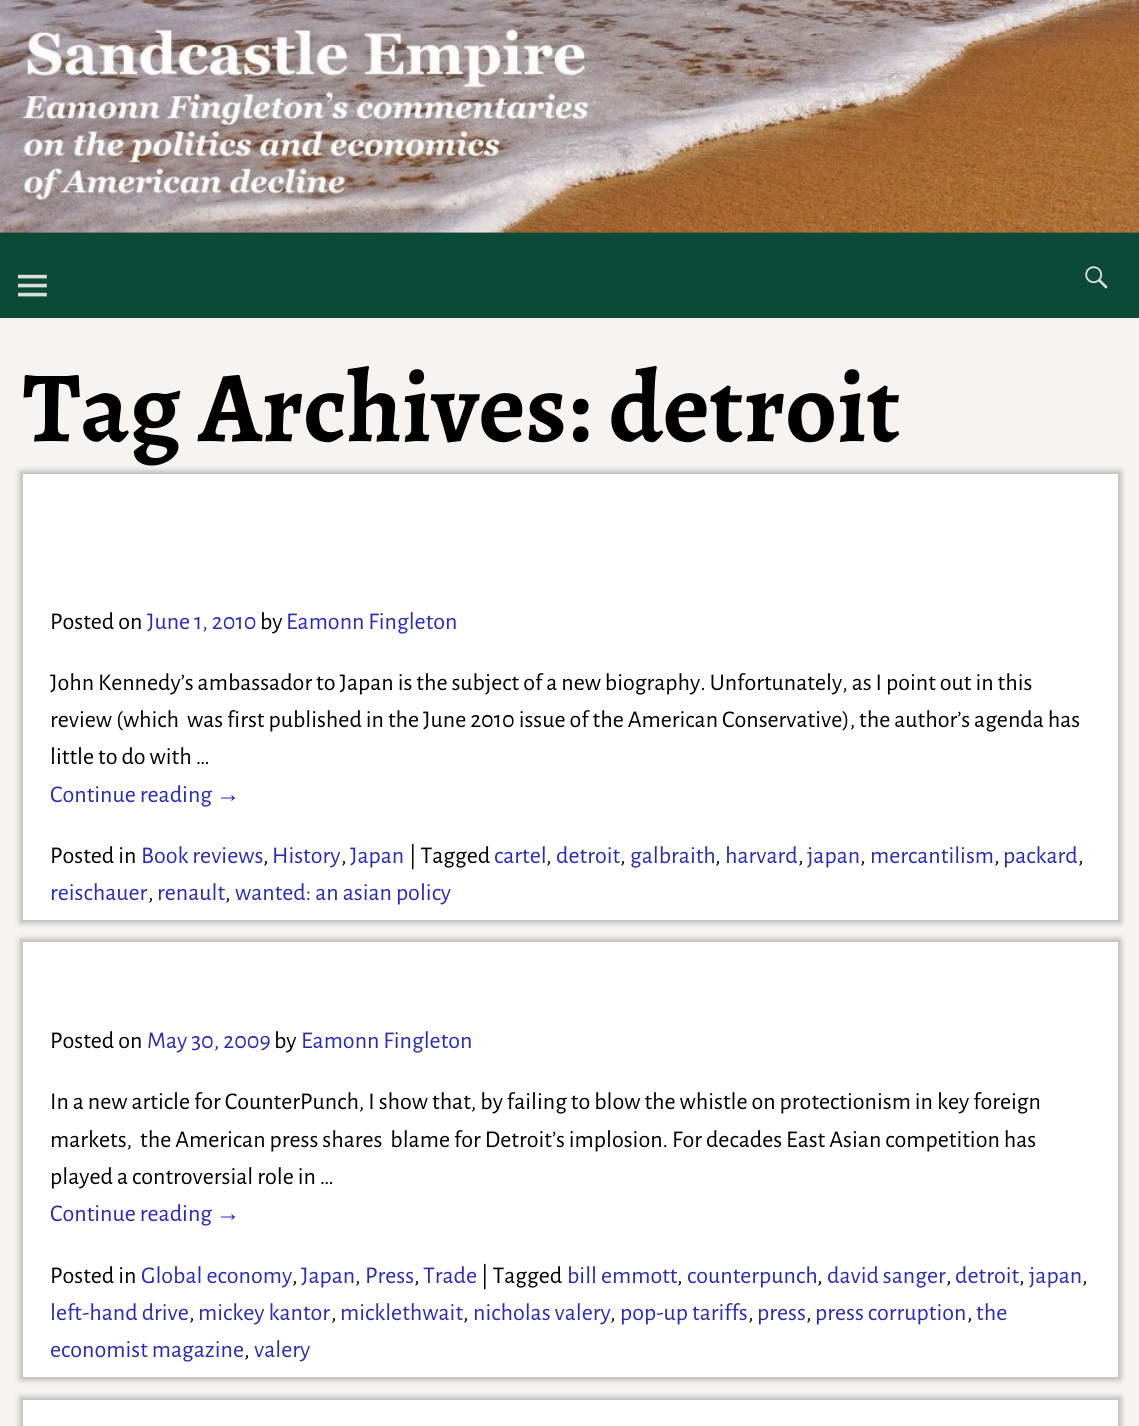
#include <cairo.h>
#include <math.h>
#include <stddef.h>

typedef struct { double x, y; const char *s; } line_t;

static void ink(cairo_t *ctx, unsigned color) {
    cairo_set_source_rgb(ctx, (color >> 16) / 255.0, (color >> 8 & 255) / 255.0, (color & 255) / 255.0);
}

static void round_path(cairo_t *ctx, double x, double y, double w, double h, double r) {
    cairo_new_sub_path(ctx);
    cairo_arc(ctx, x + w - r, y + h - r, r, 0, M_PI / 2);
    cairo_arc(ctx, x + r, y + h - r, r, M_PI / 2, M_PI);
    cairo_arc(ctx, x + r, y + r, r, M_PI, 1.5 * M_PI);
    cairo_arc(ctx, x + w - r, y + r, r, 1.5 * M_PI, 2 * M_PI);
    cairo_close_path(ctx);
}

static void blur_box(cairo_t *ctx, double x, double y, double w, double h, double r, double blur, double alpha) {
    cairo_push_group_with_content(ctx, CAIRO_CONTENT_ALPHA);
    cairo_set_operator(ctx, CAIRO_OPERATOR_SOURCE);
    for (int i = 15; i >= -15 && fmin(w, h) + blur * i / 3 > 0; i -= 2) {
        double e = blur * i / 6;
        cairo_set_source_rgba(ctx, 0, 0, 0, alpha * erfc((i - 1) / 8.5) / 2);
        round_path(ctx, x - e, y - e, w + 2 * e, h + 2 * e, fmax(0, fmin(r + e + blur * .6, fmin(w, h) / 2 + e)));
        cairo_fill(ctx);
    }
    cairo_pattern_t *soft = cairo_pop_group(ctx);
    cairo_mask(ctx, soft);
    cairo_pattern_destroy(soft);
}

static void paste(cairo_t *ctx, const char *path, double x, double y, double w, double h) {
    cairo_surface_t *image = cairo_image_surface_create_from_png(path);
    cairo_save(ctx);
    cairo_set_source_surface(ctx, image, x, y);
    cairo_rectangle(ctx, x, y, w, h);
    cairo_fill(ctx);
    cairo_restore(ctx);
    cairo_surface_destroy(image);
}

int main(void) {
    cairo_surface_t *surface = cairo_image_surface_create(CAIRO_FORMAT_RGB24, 1139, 1426);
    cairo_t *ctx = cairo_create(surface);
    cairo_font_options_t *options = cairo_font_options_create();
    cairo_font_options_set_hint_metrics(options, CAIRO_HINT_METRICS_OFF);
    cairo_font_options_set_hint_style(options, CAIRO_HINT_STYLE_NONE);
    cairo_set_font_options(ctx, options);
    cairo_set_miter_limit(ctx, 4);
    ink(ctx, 0xF6F3F0);
    cairo_paint(ctx);
    ink(ctx, 0x375247);
    cairo_rectangle(ctx, 0, 232, 1139, 1);
    cairo_fill(ctx);
    paste(ctx, "media/1.png", 0, 0, 1139, 233);
    ink(ctx, 0x0C4A38);
    cairo_rectangle(ctx, 0, 233, 1139, 85);
    cairo_fill(ctx);
    paste(ctx, "media/2.png", 18, 274, 29, 23);
    paste(ctx, "media/3.png", 1085, 266, 23, 23);
    cairo_select_font_face(ctx, "Alegreya", CAIRO_FONT_SLANT_NORMAL, CAIRO_FONT_WEIGHT_BOLD);
    cairo_set_font_size(ctx, 101.25);
    ink(ctx, 0x000000);
    cairo_move_to(ctx, 23, 441);
    cairo_show_text(ctx, "Tag Archives: detroit");
    ink(ctx, 0x000000);
    blur_box(ctx, 20, 471, 1101, 452, 0, 3, 0.25);
    ink(ctx, 0xFFFFFF);
    cairo_rectangle(ctx, 23, 474, 1095, 446);
    cairo_fill(ctx);
    cairo_select_font_face(ctx, "Alegreya Sans", CAIRO_FONT_SLANT_NORMAL, CAIRO_FONT_WEIGHT_NORMAL);
    cairo_set_font_size(ctx, 24);
    ink(ctx, 0x000000);
    cairo_move_to(ctx, 50, 629);
    cairo_show_text(ctx, "Posted on");
    ink(ctx, 0x2A2AB8);
    cairo_move_to(ctx, 147, 629);
    cairo_show_text(ctx, "June 1, 2010");
    ink(ctx, 0x000000);
    cairo_move_to(ctx, 260, 629);
    cairo_show_text(ctx, "by");
    ink(ctx, 0x2A2AB8);
    cairo_move_to(ctx, 286, 629);
    cairo_show_text(ctx, "Eamonn Fingleton");
    ink(ctx, 0x000000);
    {
        static const line_t items[] = {
            {50, 690, "John Kennedy’s ambassador to Japan is the subject of a new biography. Unfortunately, as I point out in this"},
            {50, 727, "review (which  was first published in the June 2010 issue of the American Conservative), the author’s agenda has"},
            {50, 764, "little to do with …"},
        };
        for (size_t i = 0; i < sizeof items / sizeof *items; i++) {
            cairo_move_to(ctx, items[i].x, items[i].y);
            cairo_show_text(ctx, items[i].s);
        }
    }
    ink(ctx, 0x2A2AB8);
    cairo_move_to(ctx, 50, 802);
    cairo_show_text(ctx, "Continue reading");
    cairo_select_font_face(ctx, "Liberation Sans", CAIRO_FONT_SLANT_NORMAL, CAIRO_FONT_WEIGHT_NORMAL);
    cairo_move_to(ctx, 216, 802);
    cairo_show_text(ctx, "→");
    cairo_select_font_face(ctx, "Alegreya Sans", CAIRO_FONT_SLANT_NORMAL, CAIRO_FONT_WEIGHT_NORMAL);
    ink(ctx, 0x000000);
    cairo_move_to(ctx, 50, 863);
    cairo_show_text(ctx, "Posted in");
    ink(ctx, 0x2A2AB8);
    cairo_move_to(ctx, 141, 863);
    cairo_show_text(ctx, "Book reviews");
    ink(ctx, 0x000000);
    cairo_move_to(ctx, 263, 863);
    cairo_show_text(ctx, ",");
    ink(ctx, 0x2A2AB8);
    cairo_move_to(ctx, 272, 863);
    cairo_show_text(ctx, "History");
    ink(ctx, 0x000000);
    cairo_move_to(ctx, 341, 863);
    cairo_show_text(ctx, ",");
    ink(ctx, 0x2A2AB8);
    cairo_move_to(ctx, 350, 863);
    cairo_show_text(ctx, "Japan");
    ink(ctx, 0x000000);
    cairo_move_to(ctx, 409, 863);
    cairo_show_text(ctx, "| Tagged");
    ink(ctx, 0x2A2AB8);
    cairo_move_to(ctx, 494, 863);
    cairo_show_text(ctx, "cartel");
    ink(ctx, 0x000000);
    cairo_move_to(ctx, 546, 863);
    cairo_show_text(ctx, ",");
    ink(ctx, 0x2A2AB8);
    cairo_move_to(ctx, 556, 863);
    cairo_show_text(ctx, "detroit");
    ink(ctx, 0x000000);
    cairo_move_to(ctx, 620, 863);
    cairo_show_text(ctx, ",");
    ink(ctx, 0x2A2AB8);
    cairo_move_to(ctx, 630, 863);
    cairo_show_text(ctx, "galbraith");
    ink(ctx, 0x000000);
    cairo_move_to(ctx, 715, 863);
    cairo_show_text(ctx, ",");
    ink(ctx, 0x2A2AB8);
    cairo_move_to(ctx, 725, 863);
    cairo_show_text(ctx, "harvard");
    ink(ctx, 0x000000);
    cairo_move_to(ctx, 798, 863);
    cairo_show_text(ctx, ",");
    ink(ctx, 0x2A2AB8);
    cairo_move_to(ctx, 807, 863);
    cairo_show_text(ctx, "japan");
    ink(ctx, 0x000000);
    cairo_move_to(ctx, 860, 863);
    cairo_show_text(ctx, ",");
    ink(ctx, 0x2A2AB8);
    cairo_move_to(ctx, 870, 863);
    cairo_show_text(ctx, "mercantilism");
    ink(ctx, 0x000000);
    cairo_move_to(ctx, 994, 863);
    cairo_show_text(ctx, ",");
    ink(ctx, 0x2A2AB8);
    cairo_move_to(ctx, 1003, 863);
    cairo_show_text(ctx, "packard");
    ink(ctx, 0x000000);
    cairo_move_to(ctx, 1078, 863);
    cairo_show_text(ctx, ",");
    ink(ctx, 0x2A2AB8);
    cairo_move_to(ctx, 50, 900);
    cairo_show_text(ctx, "reischauer");
    ink(ctx, 0x000000);
    cairo_move_to(ctx, 148, 900);
    cairo_show_text(ctx, ",");
    ink(ctx, 0x2A2AB8);
    cairo_move_to(ctx, 157, 900);
    cairo_show_text(ctx, "renault");
    ink(ctx, 0x000000);
    cairo_move_to(ctx, 225, 900);
    cairo_show_text(ctx, ",");
    ink(ctx, 0x2A2AB8);
    cairo_move_to(ctx, 235, 900);
    cairo_show_text(ctx, "wanted: an asian policy");
    ink(ctx, 0x000000);
    blur_box(ctx, 20, 939, 1101, 441, 0, 3, 0.25);
    ink(ctx, 0xFFFFFF);
    cairo_rectangle(ctx, 23, 942, 1095, 435);
    cairo_fill(ctx);
    ink(ctx, 0x000000);
    cairo_move_to(ctx, 50, 1048);
    cairo_show_text(ctx, "Posted on");
    ink(ctx, 0x2A2AB8);
    cairo_move_to(ctx, 147, 1048);
    cairo_show_text(ctx, "May 30, 2009");
    ink(ctx, 0x000000);
    cairo_move_to(ctx, 274, 1048);
    cairo_show_text(ctx, "by");
    ink(ctx, 0x2A2AB8);
    cairo_move_to(ctx, 301, 1048);
    cairo_show_text(ctx, "Eamonn Fingleton");
    ink(ctx, 0x000000);
    {
        static const line_t items[] = {
            {50, 1109, "In a new article for CounterPunch, I show that, by failing to blow the whistle on protectionism in key foreign"},
            {50, 1147, "markets,  the American press shares  blame for Detroit’s implosion. For decades East Asian competition has"},
            {50, 1184, "played a controversial role in …"},
        };
        for (size_t i = 0; i < sizeof items / sizeof *items; i++) {
            cairo_move_to(ctx, items[i].x, items[i].y);
            cairo_show_text(ctx, items[i].s);
        }
    }
    ink(ctx, 0x2A2AB8);
    cairo_move_to(ctx, 50, 1221);
    cairo_show_text(ctx, "Continue reading");
    cairo_select_font_face(ctx, "Liberation Sans", CAIRO_FONT_SLANT_NORMAL, CAIRO_FONT_WEIGHT_NORMAL);
    cairo_move_to(ctx, 216, 1221);
    cairo_show_text(ctx, "→");
    cairo_select_font_face(ctx, "Alegreya Sans", CAIRO_FONT_SLANT_NORMAL, CAIRO_FONT_WEIGHT_NORMAL);
    ink(ctx, 0x000000);
    cairo_move_to(ctx, 50, 1283);
    cairo_show_text(ctx, "Posted in");
    ink(ctx, 0x2A2AB8);
    cairo_move_to(ctx, 141, 1283);
    cairo_show_text(ctx, "Global economy");
    ink(ctx, 0x000000);
    cairo_move_to(ctx, 292, 1283);
    cairo_show_text(ctx, ",");
    ink(ctx, 0x2A2AB8);
    cairo_move_to(ctx, 301, 1283);
    cairo_show_text(ctx, "Japan");
    ink(ctx, 0x000000);
    cairo_move_to(ctx, 355, 1283);
    cairo_show_text(ctx, ",");
    ink(ctx, 0x2A2AB8);
    cairo_move_to(ctx, 365, 1283);
    cairo_show_text(ctx, "Press");
    ink(ctx, 0x000000);
    cairo_move_to(ctx, 414, 1283);
    cairo_show_text(ctx, ",");
    ink(ctx, 0x2A2AB8);
    cairo_move_to(ctx, 423, 1283);
    cairo_show_text(ctx, "Trade");
    ink(ctx, 0x000000);
    cairo_move_to(ctx, 481, 1283);
    cairo_show_text(ctx, "| Tagged");
    ink(ctx, 0x2A2AB8);
    cairo_move_to(ctx, 567, 1283);
    cairo_show_text(ctx, "bill emmott");
    ink(ctx, 0x000000);
    cairo_move_to(ctx, 677, 1283);
    cairo_show_text(ctx, ",");
    ink(ctx, 0x2A2AB8);
    cairo_move_to(ctx, 687, 1283);
    cairo_show_text(ctx, "counterpunch");
    ink(ctx, 0x000000);
    cairo_move_to(ctx, 817, 1283);
    cairo_show_text(ctx, ",");
    ink(ctx, 0x2A2AB8);
    cairo_move_to(ctx, 827, 1283);
    cairo_show_text(ctx, "david sanger");
    ink(ctx, 0x000000);
    cairo_move_to(ctx, 946, 1283);
    cairo_show_text(ctx, ",");
    ink(ctx, 0x2A2AB8);
    cairo_move_to(ctx, 955, 1283);
    cairo_show_text(ctx, "detroit");
    ink(ctx, 0x000000);
    cairo_move_to(ctx, 1019, 1283);
    cairo_show_text(ctx, ",");
    ink(ctx, 0x2A2AB8);
    cairo_move_to(ctx, 1029, 1283);
    cairo_show_text(ctx, "japan");
    ink(ctx, 0x000000);
    cairo_move_to(ctx, 1082, 1283);
    cairo_show_text(ctx, ",");
    ink(ctx, 0x2A2AB8);
    cairo_move_to(ctx, 50, 1320);
    cairo_show_text(ctx, "left-hand drive");
    ink(ctx, 0x000000);
    cairo_move_to(ctx, 189, 1320);
    cairo_show_text(ctx, ",");
    ink(ctx, 0x2A2AB8);
    cairo_move_to(ctx, 198, 1320);
    cairo_show_text(ctx, "mickey kantor");
    ink(ctx, 0x000000);
    cairo_move_to(ctx, 331, 1320);
    cairo_show_text(ctx, ",");
    ink(ctx, 0x2A2AB8);
    cairo_move_to(ctx, 340, 1320);
    cairo_show_text(ctx, "micklethwait");
    ink(ctx, 0x000000);
    cairo_move_to(ctx, 463, 1320);
    cairo_show_text(ctx, ",");
    ink(ctx, 0x2A2AB8);
    cairo_move_to(ctx, 473, 1320);
    cairo_show_text(ctx, "nicholas valery");
    ink(ctx, 0x000000);
    cairo_move_to(ctx, 610, 1320);
    cairo_show_text(ctx, ",");
    ink(ctx, 0x2A2AB8);
    cairo_move_to(ctx, 620, 1320);
    cairo_show_text(ctx, "pop-up tariffs");
    ink(ctx, 0x000000);
    cairo_move_to(ctx, 748, 1320);
    cairo_show_text(ctx, ",");
    ink(ctx, 0x2A2AB8);
    cairo_move_to(ctx, 757, 1320);
    cairo_show_text(ctx, "press");
    ink(ctx, 0x000000);
    cairo_move_to(ctx, 806, 1320);
    cairo_show_text(ctx, ",");
    ink(ctx, 0x2A2AB8);
    cairo_move_to(ctx, 815, 1320);
    cairo_show_text(ctx, "press corruption");
    ink(ctx, 0x000000);
    cairo_move_to(ctx, 967, 1320);
    cairo_show_text(ctx, ",");
    ink(ctx, 0x2A2AB8);
    cairo_move_to(ctx, 976, 1320);
    cairo_show_text(ctx, "the");
    cairo_move_to(ctx, 50, 1357);
    cairo_show_text(ctx, "economist magazine");
    ink(ctx, 0x000000);
    cairo_move_to(ctx, 244, 1357);
    cairo_show_text(ctx, ",");
    ink(ctx, 0x2A2AB8);
    cairo_move_to(ctx, 254, 1357);
    cairo_show_text(ctx, "valery");
    ink(ctx, 0x000000);
    blur_box(ctx, 20, 1397, 1101, 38, 0, 3, 0.25);
    ink(ctx, 0xFFFFFF);
    cairo_rectangle(ctx, 23, 1400, 1095, 26);
    cairo_fill(ctx);
    cairo_surface_write_to_png(surface, "image.png");
    cairo_font_options_destroy(options);
    cairo_destroy(ctx);
    cairo_surface_destroy(surface);
    return 0;
}
